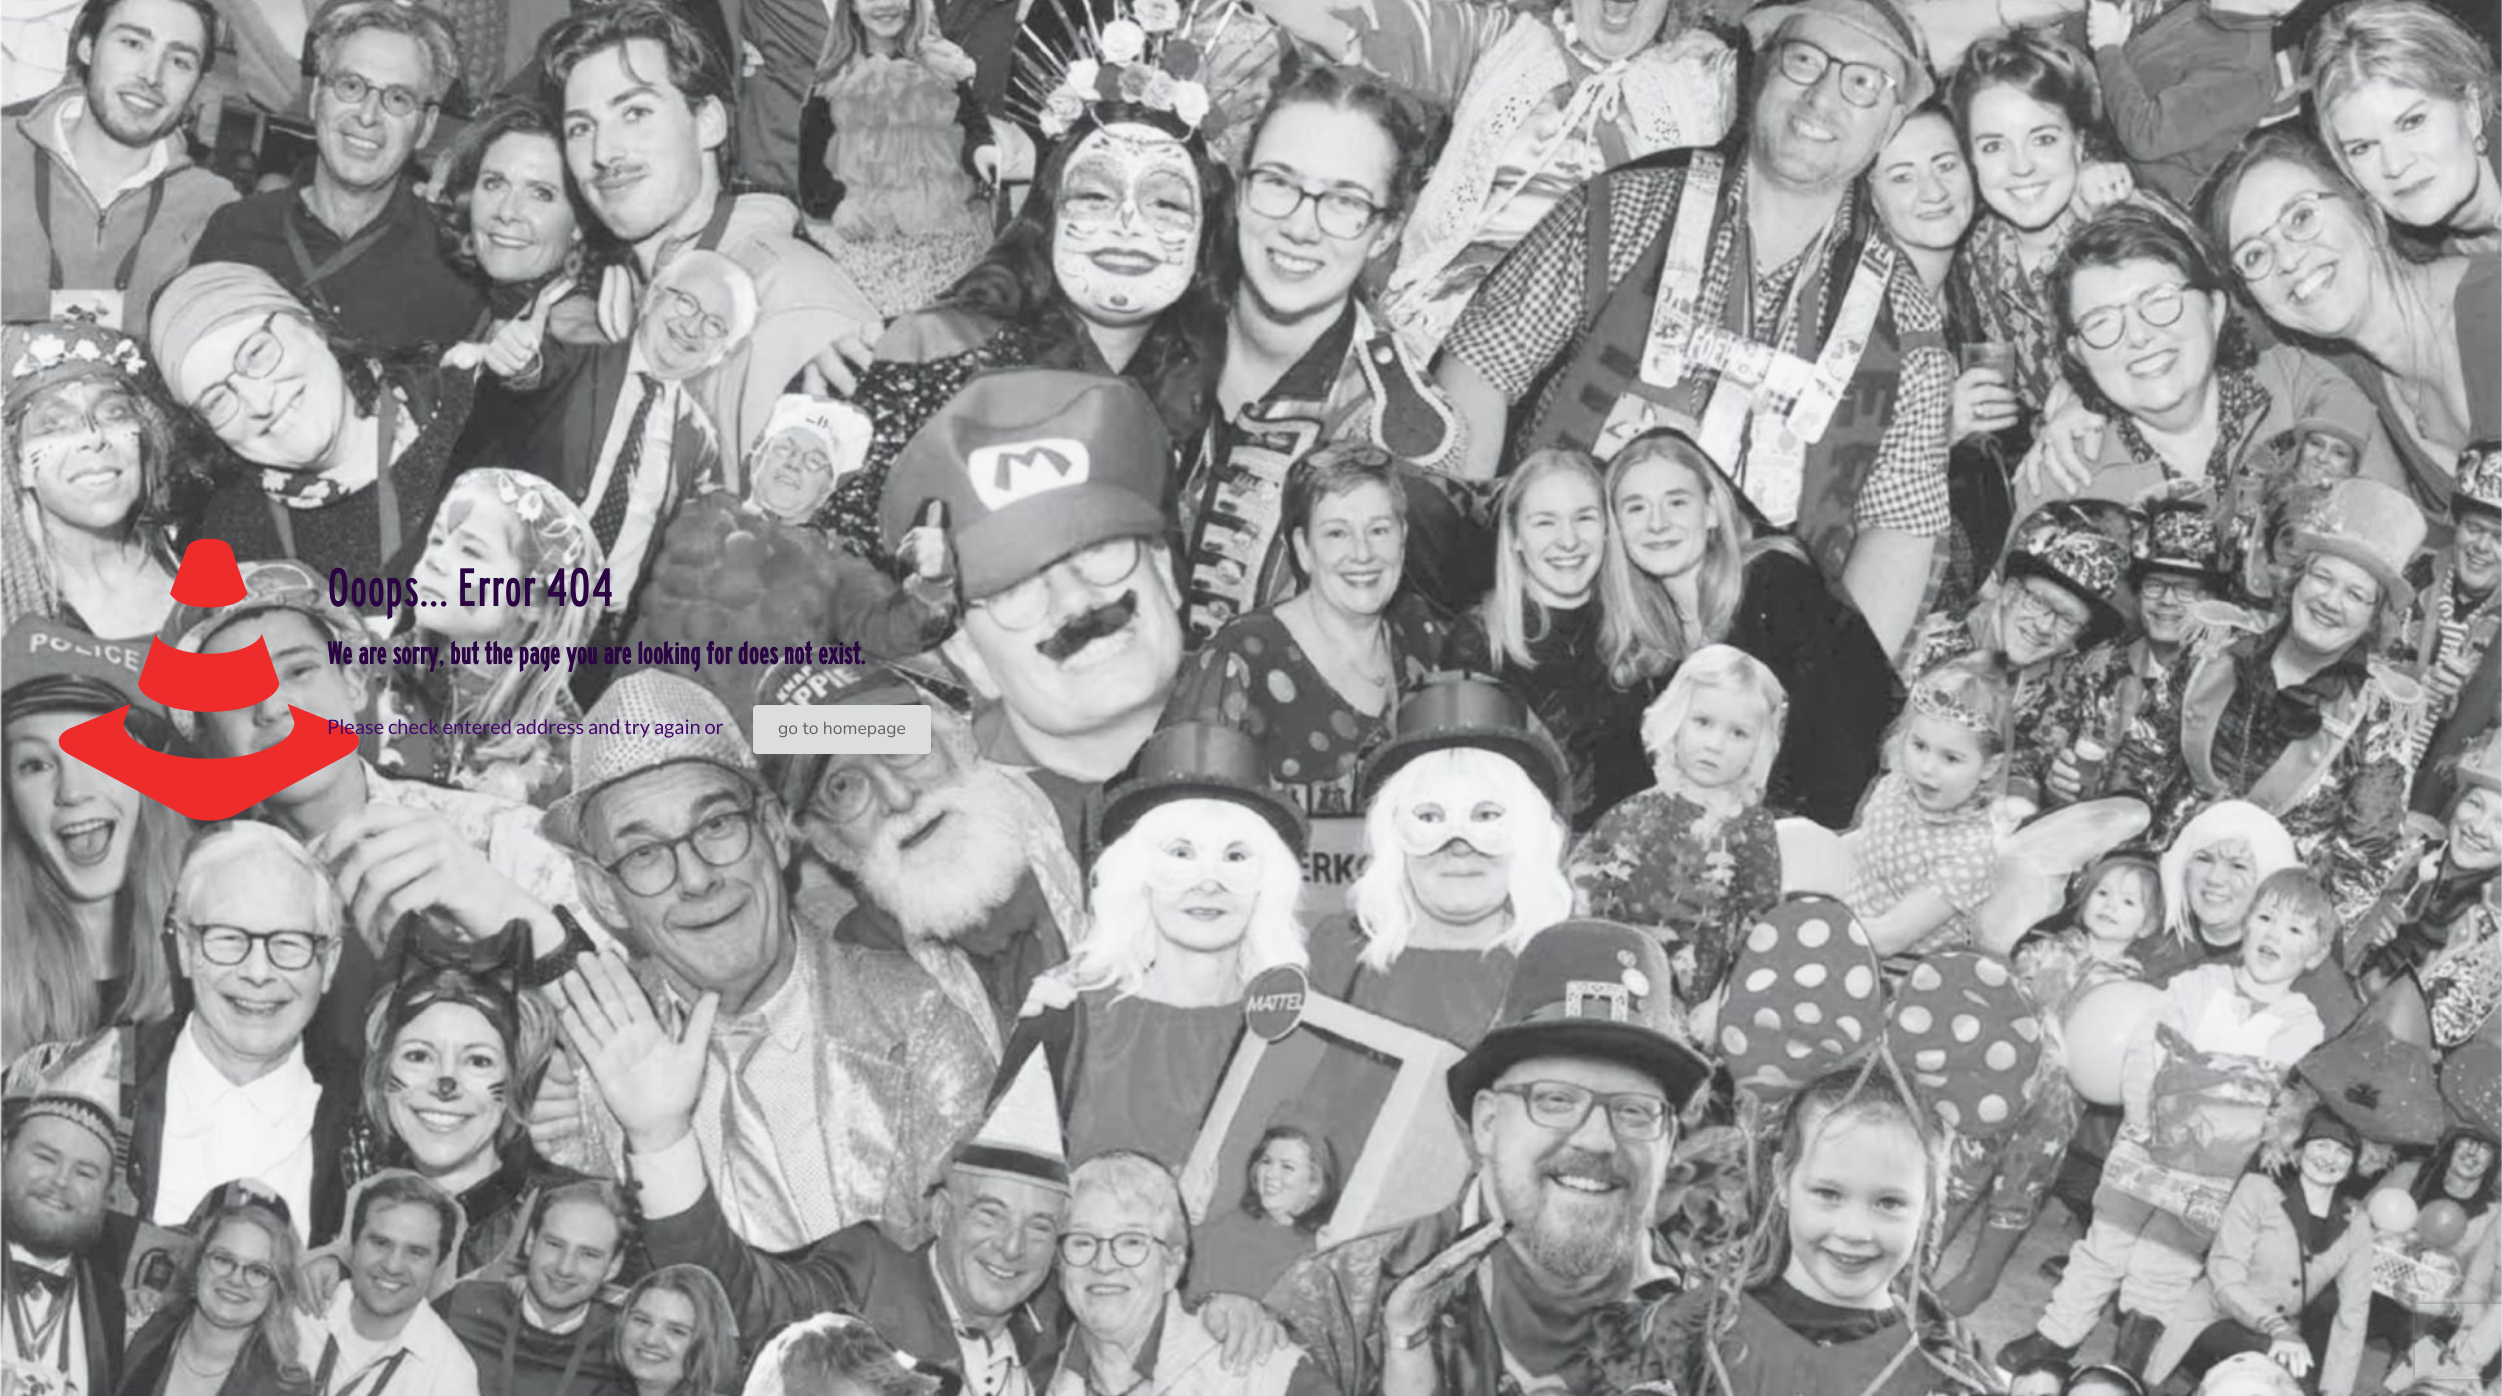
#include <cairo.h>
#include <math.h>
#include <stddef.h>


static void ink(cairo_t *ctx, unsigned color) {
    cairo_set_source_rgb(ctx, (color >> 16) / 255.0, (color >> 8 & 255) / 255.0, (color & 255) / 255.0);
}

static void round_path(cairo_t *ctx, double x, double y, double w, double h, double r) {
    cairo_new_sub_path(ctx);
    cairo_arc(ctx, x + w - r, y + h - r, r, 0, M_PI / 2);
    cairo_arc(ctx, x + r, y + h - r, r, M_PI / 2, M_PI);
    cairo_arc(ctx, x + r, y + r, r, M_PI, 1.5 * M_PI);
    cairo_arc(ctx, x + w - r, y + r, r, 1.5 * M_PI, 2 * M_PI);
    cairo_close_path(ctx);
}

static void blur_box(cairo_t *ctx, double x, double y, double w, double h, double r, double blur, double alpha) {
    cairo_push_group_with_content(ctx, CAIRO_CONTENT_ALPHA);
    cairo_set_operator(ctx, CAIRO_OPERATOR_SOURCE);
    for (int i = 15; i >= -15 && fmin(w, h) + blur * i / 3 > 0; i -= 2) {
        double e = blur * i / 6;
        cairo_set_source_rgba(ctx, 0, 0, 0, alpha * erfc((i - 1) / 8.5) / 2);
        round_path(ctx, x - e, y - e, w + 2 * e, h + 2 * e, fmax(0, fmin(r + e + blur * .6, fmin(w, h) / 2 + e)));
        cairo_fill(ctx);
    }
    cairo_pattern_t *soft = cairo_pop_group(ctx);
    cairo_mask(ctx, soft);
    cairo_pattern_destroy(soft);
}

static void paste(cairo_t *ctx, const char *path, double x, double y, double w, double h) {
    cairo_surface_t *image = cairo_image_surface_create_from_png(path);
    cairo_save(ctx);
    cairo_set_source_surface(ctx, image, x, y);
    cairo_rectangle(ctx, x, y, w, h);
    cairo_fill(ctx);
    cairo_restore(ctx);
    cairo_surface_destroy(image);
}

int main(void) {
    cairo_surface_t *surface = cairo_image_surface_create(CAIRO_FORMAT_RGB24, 2502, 1396);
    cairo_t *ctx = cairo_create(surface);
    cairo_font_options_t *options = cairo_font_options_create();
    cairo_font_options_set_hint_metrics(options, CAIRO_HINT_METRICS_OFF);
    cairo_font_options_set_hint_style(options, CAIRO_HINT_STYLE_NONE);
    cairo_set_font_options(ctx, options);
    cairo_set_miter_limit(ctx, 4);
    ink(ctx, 0xFFFFFF);
    cairo_paint(ctx);
    paste(ctx, "media/1.png", 0, 0, 2502, 1396);
    paste(ctx, "media/2.png", 58, 538, 302, 283);
    cairo_select_font_face(ctx, "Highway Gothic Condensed", CAIRO_FONT_SLANT_NORMAL, CAIRO_FONT_WEIGHT_NORMAL);
    cairo_set_font_size(ctx, 56.25);
    ink(ctx, 0x2A0443);
    cairo_move_to(ctx, 327, 606);
    cairo_show_text(ctx, "Ooops... Error 404");
    cairo_select_font_face(ctx, "Highway Gothic Condensed", CAIRO_FONT_SLANT_NORMAL, CAIRO_FONT_WEIGHT_BOLD);
    cairo_set_font_size(ctx, 32.5);
    cairo_move_to(ctx, 327, 664);
    cairo_show_text(ctx, "We are sorry, but the page you are looking for does not exist.");
    cairo_select_font_face(ctx, "Lato", CAIRO_FONT_SLANT_NORMAL, CAIRO_FONT_WEIGHT_NORMAL);
    cairo_set_font_size(ctx, 20);
    ink(ctx, 0x44056C);
    cairo_move_to(ctx, 327, 734);
    cairo_show_text(ctx, "Please check entered address and try again or");
    ink(ctx, 0xDBDDDF);
    round_path(ctx, 753, 705, 178, 49, 4);
    cairo_fill(ctx);
    cairo_select_font_face(ctx, "Nunito ExtraLight", CAIRO_FONT_SLANT_NORMAL, CAIRO_FONT_WEIGHT_NORMAL);
    cairo_set_font_size(ctx, 17.5);
    ink(ctx, 0x626262);
    cairo_move_to(ctx, 778, 734);
    cairo_show_text(ctx, "go to homepage");
    cairo_save(ctx);
    cairo_set_fill_rule(ctx, CAIRO_FILL_RULE_EVEN_ODD);
    cairo_new_path(ctx);
    cairo_move_to(ctx, 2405, 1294);
    cairo_line_to(ctx, 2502, 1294);
    cairo_line_to(ctx, 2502, 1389);
    cairo_line_to(ctx, 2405, 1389);
    cairo_close_path(ctx);
    cairo_move_to(ctx, 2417.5, 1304);
    cairo_line_to(ctx, 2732.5, 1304);
    cairo_curve_to(ctx, 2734, 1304, 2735, 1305, 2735, 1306.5);
    cairo_line_to(ctx, 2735, 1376.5);
    cairo_curve_to(ctx, 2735, 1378, 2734, 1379, 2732.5, 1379);
    cairo_line_to(ctx, 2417.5, 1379);
    cairo_curve_to(ctx, 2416, 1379, 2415, 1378, 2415, 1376.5);
    cairo_line_to(ctx, 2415, 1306.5);
    cairo_curve_to(ctx, 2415, 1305, 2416, 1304, 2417.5, 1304);
    cairo_close_path(ctx);
    cairo_clip(ctx);
    ink(ctx, 0x808080);
    blur_box(ctx, 2415, 1304, 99, 75, 2.5, 3, 1);
    cairo_restore(ctx);
    cairo_surface_write_to_png(surface, "image.png");
    cairo_font_options_destroy(options);
    cairo_destroy(ctx);
    cairo_surface_destroy(surface);
    return 0;
}
